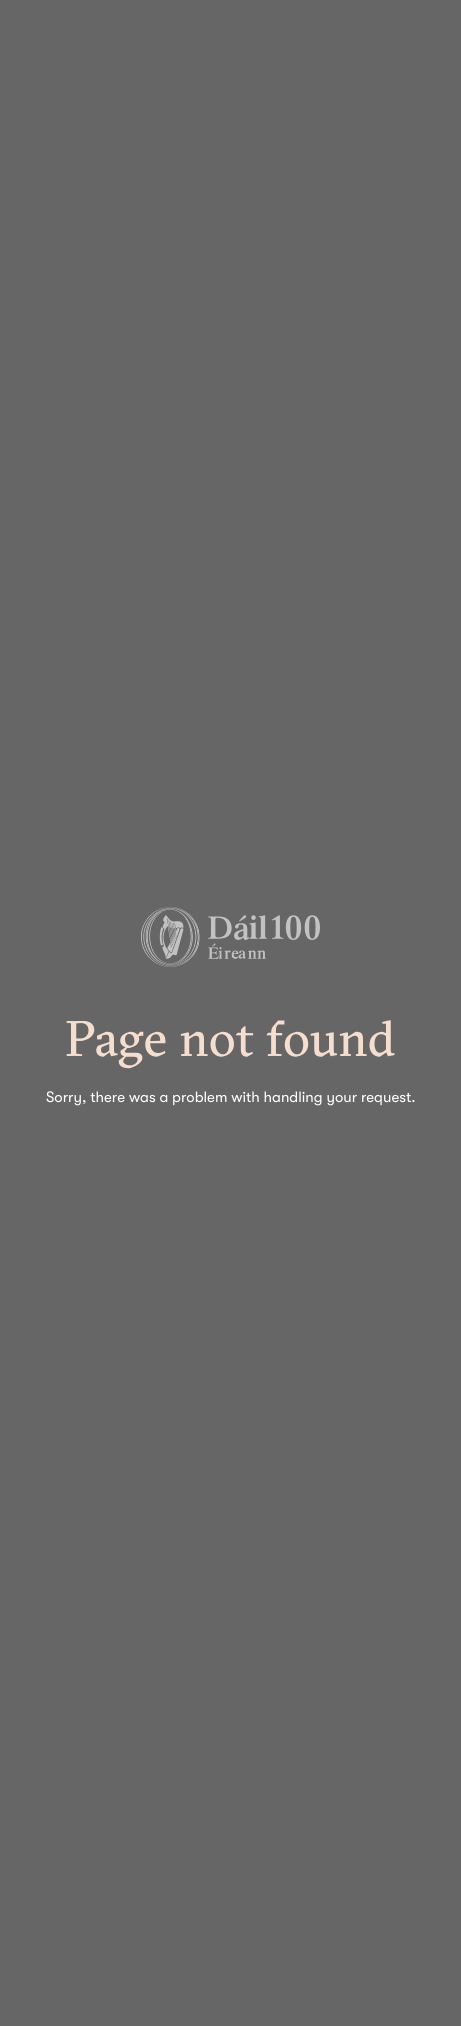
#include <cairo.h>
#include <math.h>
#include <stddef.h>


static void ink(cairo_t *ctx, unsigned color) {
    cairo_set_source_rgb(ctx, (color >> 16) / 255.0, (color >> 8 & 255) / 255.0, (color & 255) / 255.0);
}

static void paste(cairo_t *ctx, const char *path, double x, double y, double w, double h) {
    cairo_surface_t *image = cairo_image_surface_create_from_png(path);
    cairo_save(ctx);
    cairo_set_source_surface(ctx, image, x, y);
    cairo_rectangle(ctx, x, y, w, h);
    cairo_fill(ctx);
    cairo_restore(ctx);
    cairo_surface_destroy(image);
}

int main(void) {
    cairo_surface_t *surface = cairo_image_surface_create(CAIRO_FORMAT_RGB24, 461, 2026);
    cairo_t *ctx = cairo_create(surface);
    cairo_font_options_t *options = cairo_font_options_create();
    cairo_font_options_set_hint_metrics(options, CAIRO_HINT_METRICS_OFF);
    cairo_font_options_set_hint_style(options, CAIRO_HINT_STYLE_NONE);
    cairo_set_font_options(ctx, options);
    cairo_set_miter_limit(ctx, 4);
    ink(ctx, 0x666666);
    cairo_paint(ctx);
    paste(ctx, "media/1.png", 141, 907, 179, 60);
    cairo_select_font_face(ctx, "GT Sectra", CAIRO_FONT_SLANT_NORMAL, CAIRO_FONT_WEIGHT_NORMAL);
    cairo_set_font_size(ctx, 50);
    ink(ctx, 0xF6DECE);
    cairo_move_to(ctx, 65, 1056);
    cairo_show_text(ctx, "Page not found");
    cairo_select_font_face(ctx, "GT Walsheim", CAIRO_FONT_SLANT_NORMAL, CAIRO_FONT_WEIGHT_NORMAL);
    cairo_set_font_size(ctx, 15);
    ink(ctx, 0xFFFFFF);
    cairo_move_to(ctx, 46, 1102);
    cairo_show_text(ctx, "Sorry, there was a problem with handling your request.");
    cairo_surface_write_to_png(surface, "image.png");
    cairo_font_options_destroy(options);
    cairo_destroy(ctx);
    cairo_surface_destroy(surface);
    return 0;
}
